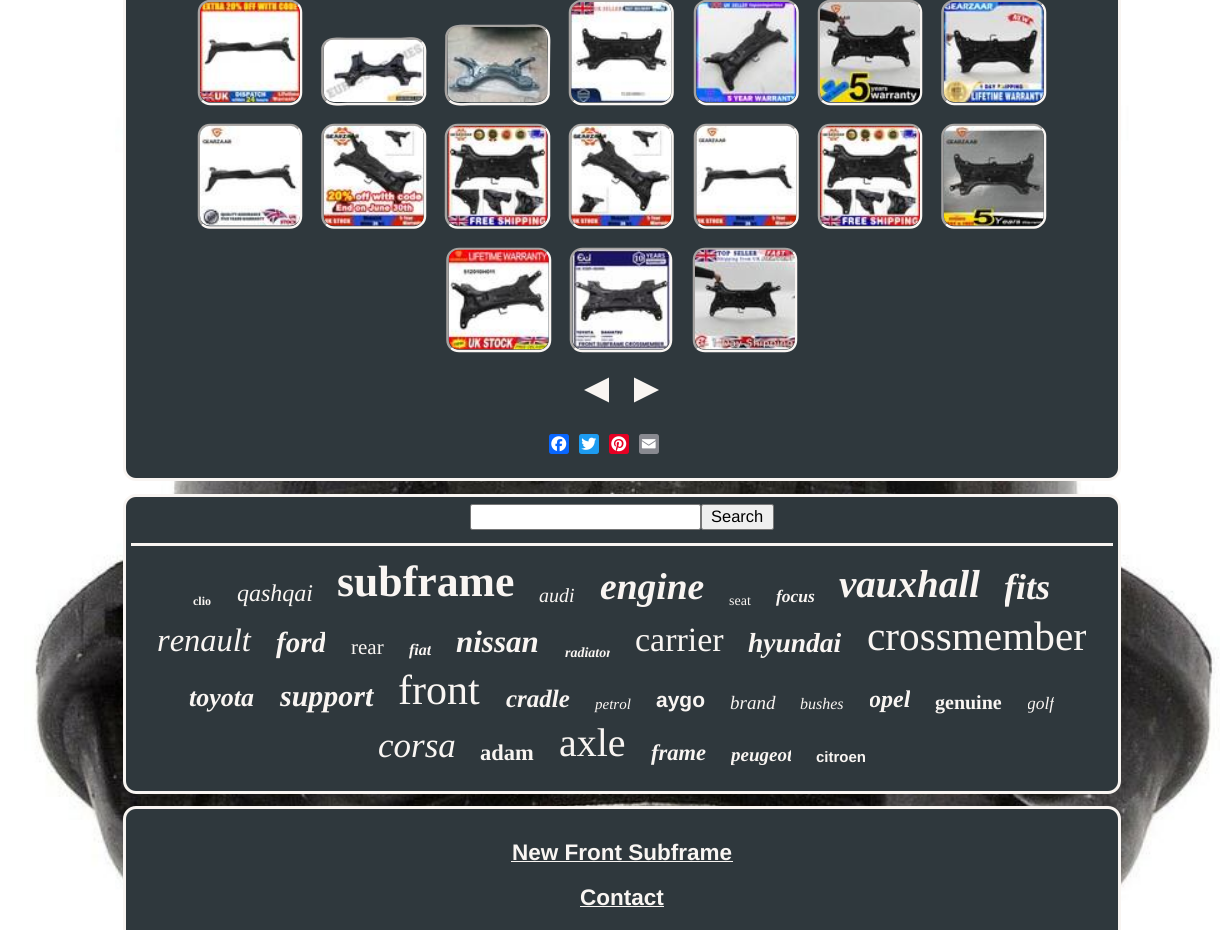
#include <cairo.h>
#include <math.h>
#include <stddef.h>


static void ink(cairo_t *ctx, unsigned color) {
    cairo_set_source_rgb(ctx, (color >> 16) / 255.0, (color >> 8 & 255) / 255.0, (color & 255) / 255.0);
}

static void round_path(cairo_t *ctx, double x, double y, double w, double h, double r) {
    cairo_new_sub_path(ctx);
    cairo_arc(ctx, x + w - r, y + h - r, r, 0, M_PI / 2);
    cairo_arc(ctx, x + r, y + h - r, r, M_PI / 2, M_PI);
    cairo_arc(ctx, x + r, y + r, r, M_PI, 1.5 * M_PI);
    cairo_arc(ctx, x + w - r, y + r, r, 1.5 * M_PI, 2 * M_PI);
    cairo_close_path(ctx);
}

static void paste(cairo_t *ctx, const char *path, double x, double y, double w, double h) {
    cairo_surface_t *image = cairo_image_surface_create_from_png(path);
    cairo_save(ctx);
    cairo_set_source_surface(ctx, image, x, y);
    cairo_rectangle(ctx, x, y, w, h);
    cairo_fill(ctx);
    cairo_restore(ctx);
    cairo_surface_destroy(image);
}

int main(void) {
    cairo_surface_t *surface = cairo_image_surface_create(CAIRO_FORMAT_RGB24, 1226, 930);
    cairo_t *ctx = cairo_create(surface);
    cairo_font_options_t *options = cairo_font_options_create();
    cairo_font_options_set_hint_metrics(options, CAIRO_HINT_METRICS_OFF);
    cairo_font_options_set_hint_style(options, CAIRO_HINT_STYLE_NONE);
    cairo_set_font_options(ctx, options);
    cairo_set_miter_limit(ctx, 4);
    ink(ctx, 0xFFFFFF);
    cairo_paint(ctx);
    paste(ctx, "media/1.png", 24, 0, 1196, 930);
    ink(ctx, 0x2F383D);
    round_path(ctx, 124.5, -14.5, 995, 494, 11.5);
    cairo_fill_preserve(ctx);
    ink(ctx, 0xF9F5F2);
    cairo_set_line_width(ctx, 3);
    cairo_stroke(ctx);
    cairo_new_path(ctx);
    cairo_move_to(ctx, 298, 4.5);
    cairo_curve_to(ctx, 300, 6.5, 301, 9.5, 301, 12.5);
    cairo_line_to(ctx, 301, 92.5);
    cairo_curve_to(ctx, 301, 95.5, 300, 98.5, 298, 100.5);
    cairo_curve_to(ctx, 296, 102.5, 293, 104, 290, 104);
    cairo_line_to(ctx, 210, 104);
    cairo_curve_to(ctx, 207, 104, 204, 102.5, 202, 100.5);
    cairo_set_line_width(ctx, 2.5);
    cairo_stroke(ctx);
    cairo_new_path(ctx);
    cairo_move_to(ctx, 202, 100.5);
    cairo_curve_to(ctx, 200, 98.5, 199, 95.5, 199, 92.5);
    cairo_line_to(ctx, 199, 12.5);
    cairo_curve_to(ctx, 199, 9.5, 200, 6.5, 202, 4.5);
    cairo_curve_to(ctx, 204, 2.5, 207, 1, 210, 1);
    cairo_line_to(ctx, 290, 1);
    cairo_curve_to(ctx, 293, 1, 296, 2.5, 298, 4.5);
    ink(ctx, 0xA6A3A1);
    cairo_stroke(ctx);
    cairo_new_path(ctx);
    cairo_move_to(ctx, 669, 4.5);
    cairo_curve_to(ctx, 671.5, 6.5, 672.5, 9.5, 672.5, 12.5);
    cairo_line_to(ctx, 672.5, 92.5);
    cairo_curve_to(ctx, 672.5, 95.5, 671.5, 98.5, 669, 100.5);
    cairo_curve_to(ctx, 667, 102.5, 664, 104, 661, 104);
    cairo_line_to(ctx, 581, 104);
    cairo_curve_to(ctx, 578.5, 104, 575.5, 102.5, 573.5, 100.5);
    ink(ctx, 0xF9F5F2);
    cairo_stroke(ctx);
    cairo_new_path(ctx);
    cairo_move_to(ctx, 573.5, 100.5);
    cairo_curve_to(ctx, 571, 98.5, 570, 95.5, 570, 92.5);
    cairo_line_to(ctx, 570, 12.5);
    cairo_curve_to(ctx, 570, 9.5, 571, 6.5, 573.5, 4.5);
    cairo_curve_to(ctx, 575.5, 2.5, 578.5, 1, 581, 1);
    cairo_line_to(ctx, 661, 1);
    cairo_curve_to(ctx, 664, 1, 667, 2.5, 669, 4.5);
    ink(ctx, 0xA6A3A1);
    cairo_stroke(ctx);
    cairo_new_path(ctx);
    cairo_move_to(ctx, 794, 4.5);
    cairo_curve_to(ctx, 796.5, 6.5, 797.5, 9.5, 797.5, 12.5);
    cairo_line_to(ctx, 797.5, 92.5);
    cairo_curve_to(ctx, 797.5, 95.5, 796.5, 98.5, 794, 100.5);
    cairo_curve_to(ctx, 792, 102.5, 789, 104, 786, 104);
    cairo_line_to(ctx, 706, 104);
    cairo_curve_to(ctx, 703.5, 104, 700.5, 102.5, 698.5, 100.5);
    ink(ctx, 0xF9F5F2);
    cairo_stroke(ctx);
    cairo_new_path(ctx);
    cairo_move_to(ctx, 698.5, 100.5);
    cairo_curve_to(ctx, 696, 98.5, 695, 95.5, 695, 92.5);
    cairo_line_to(ctx, 695, 12.5);
    cairo_curve_to(ctx, 695, 9.5, 696, 6.5, 698.5, 4.5);
    cairo_curve_to(ctx, 700.5, 2.5, 703.5, 1, 706, 1);
    cairo_line_to(ctx, 786, 1);
    cairo_curve_to(ctx, 789, 1, 792, 2.5, 794, 4.5);
    ink(ctx, 0xA6A3A1);
    cairo_stroke(ctx);
    cairo_new_path(ctx);
    cairo_move_to(ctx, 918, 4.5);
    cairo_curve_to(ctx, 920, 6.5, 921, 9.5, 921, 12.5);
    cairo_line_to(ctx, 921, 92.5);
    cairo_curve_to(ctx, 921, 95.5, 920, 98.5, 918, 100.5);
    cairo_curve_to(ctx, 916, 102.5, 913, 104, 910, 104);
    cairo_line_to(ctx, 830, 104);
    cairo_curve_to(ctx, 827, 104, 824, 102.5, 822, 100.5);
    ink(ctx, 0xF9F5F2);
    cairo_stroke(ctx);
    cairo_new_path(ctx);
    cairo_move_to(ctx, 822, 100.5);
    cairo_curve_to(ctx, 820, 98.5, 819, 95.5, 819, 92.5);
    cairo_line_to(ctx, 819, 12.5);
    cairo_curve_to(ctx, 819, 9.5, 820, 6.5, 822, 4.5);
    cairo_curve_to(ctx, 824, 2.5, 827, 1, 830, 1);
    cairo_line_to(ctx, 910, 1);
    cairo_curve_to(ctx, 913, 1, 916, 2.5, 918, 4.5);
    ink(ctx, 0xA6A3A1);
    cairo_stroke(ctx);
    cairo_new_path(ctx);
    cairo_move_to(ctx, 1041.5, 4.5);
    cairo_curve_to(ctx, 1044, 6.5, 1045, 9.5, 1045, 12.5);
    cairo_line_to(ctx, 1045, 92.5);
    cairo_curve_to(ctx, 1045, 95.5, 1044, 98.5, 1041.5, 100.5);
    cairo_curve_to(ctx, 1039.5, 102.5, 1036.5, 104, 1034, 104);
    cairo_line_to(ctx, 954, 104);
    cairo_curve_to(ctx, 951, 104, 948, 102.5, 946, 100.5);
    ink(ctx, 0xF9F5F2);
    cairo_stroke(ctx);
    cairo_new_path(ctx);
    cairo_move_to(ctx, 946, 100.5);
    cairo_curve_to(ctx, 943.5, 98.5, 942.5, 95.5, 942.5, 92.5);
    cairo_line_to(ctx, 942.5, 12.5);
    cairo_curve_to(ctx, 942.5, 9.5, 943.5, 6.5, 946, 4.5);
    cairo_curve_to(ctx, 948, 2.5, 951, 1, 954, 1);
    cairo_line_to(ctx, 1034, 1);
    cairo_curve_to(ctx, 1036.5, 1, 1039.5, 2.5, 1041.5, 4.5);
    ink(ctx, 0xA6A3A1);
    cairo_stroke(ctx);
    paste(ctx, "media/2.png", 200, 2, 100, 100);
    paste(ctx, "media/3.png", 571, 2, 100, 100);
    paste(ctx, "media/4.png", 696, 2, 101, 100);
    paste(ctx, "media/5.png", 820, 2, 100, 100);
    paste(ctx, "media/6.png", 943, 2, 101, 100);
    cairo_new_path(ctx);
    cairo_move_to(ctx, 545.5, 29.5);
    cairo_curve_to(ctx, 550, 34, 549, 41, 549, 46.5);
    cairo_line_to(ctx, 548.5, 94.5);
    cairo_curve_to(ctx, 546, 106, 532.5, 104, 524, 104);
    cairo_line_to(ctx, 471, 104);
    cairo_curve_to(ctx, 464.5, 104, 455, 106, 449.5, 100.5);
    ink(ctx, 0xF9F5F2);
    cairo_stroke(ctx);
    cairo_new_path(ctx);
    cairo_move_to(ctx, 449.5, 100.5);
    cairo_curve_to(ctx, 445, 96, 446, 89, 446, 83.5);
    cairo_line_to(ctx, 446.5, 35.5);
    cairo_curve_to(ctx, 449, 24, 462.5, 26, 471, 26);
    cairo_line_to(ctx, 524, 26);
    cairo_curve_to(ctx, 530.5, 26, 540, 24, 545.5, 29.5);
    ink(ctx, 0xA6A3A1);
    cairo_stroke(ctx);
    paste(ctx, "media/7.png", 447, 27, 101, 75);
    cairo_new_path(ctx);
    cairo_move_to(ctx, 421.5, 42);
    cairo_curve_to(ctx, 426, 46, 425, 51.5, 425, 57);
    cairo_line_to(ctx, 425, 94.5);
    cairo_curve_to(ctx, 422.5, 106, 409, 104, 400.5, 104);
    cairo_line_to(ctx, 347, 104);
    cairo_curve_to(ctx, 341, 104, 331, 106, 326, 100.5);
    ink(ctx, 0xF9F5F2);
    cairo_stroke(ctx);
    cairo_new_path(ctx);
    cairo_move_to(ctx, 326, 100.5);
    cairo_curve_to(ctx, 321.5, 96.5, 322.5, 91, 322.5, 85.5);
    cairo_line_to(ctx, 322.5, 48);
    cairo_curve_to(ctx, 325, 36.5, 338.5, 39, 347, 39);
    cairo_line_to(ctx, 400.5, 39);
    cairo_curve_to(ctx, 406.5, 39, 416.5, 36.5, 421.5, 42);
    ink(ctx, 0xA6A3A1);
    cairo_stroke(ctx);
    paste(ctx, "media/8.png", 323, 39, 101, 63);
    cairo_new_path(ctx);
    cairo_move_to(ctx, 298, 128.5);
    cairo_curve_to(ctx, 300, 130.5, 301, 133.5, 301, 136);
    cairo_line_to(ctx, 301, 216);
    cairo_curve_to(ctx, 301, 219, 300, 222, 298, 224);
    cairo_curve_to(ctx, 296, 226.5, 293, 227.5, 290, 227.5);
    cairo_line_to(ctx, 210, 227.5);
    cairo_curve_to(ctx, 207, 227.5, 204, 226.5, 202, 224);
    ink(ctx, 0xF9F5F2);
    cairo_stroke(ctx);
    cairo_new_path(ctx);
    cairo_move_to(ctx, 202, 224);
    cairo_curve_to(ctx, 200, 222, 199, 219, 199, 216);
    cairo_line_to(ctx, 199, 136);
    cairo_curve_to(ctx, 199, 133.5, 200, 130.5, 202, 128.5);
    cairo_curve_to(ctx, 204, 126, 207, 125, 210, 125);
    cairo_line_to(ctx, 290, 125);
    cairo_curve_to(ctx, 293, 125, 296, 126, 298, 128.5);
    ink(ctx, 0xA6A3A1);
    cairo_stroke(ctx);
    cairo_new_path(ctx);
    cairo_move_to(ctx, 421.5, 128.5);
    cairo_curve_to(ctx, 424, 130.5, 425, 133.5, 425, 136);
    cairo_line_to(ctx, 425, 216);
    cairo_curve_to(ctx, 425, 219, 424, 222, 421.5, 224);
    cairo_curve_to(ctx, 419.5, 226.5, 416.5, 227.5, 414, 227.5);
    cairo_line_to(ctx, 334, 227.5);
    cairo_curve_to(ctx, 331, 227.5, 328, 226.5, 326, 224);
    ink(ctx, 0xF9F5F2);
    cairo_stroke(ctx);
    cairo_new_path(ctx);
    cairo_move_to(ctx, 326, 224);
    cairo_curve_to(ctx, 323.5, 222, 322.5, 219, 322.5, 216);
    cairo_line_to(ctx, 322.5, 136);
    cairo_curve_to(ctx, 322.5, 133.5, 323.5, 130.5, 326, 128.5);
    cairo_curve_to(ctx, 328, 126, 331, 125, 334, 125);
    cairo_line_to(ctx, 414, 125);
    cairo_curve_to(ctx, 416.5, 125, 419.5, 126, 421.5, 128.5);
    ink(ctx, 0xA6A3A1);
    cairo_stroke(ctx);
    cairo_new_path(ctx);
    cairo_move_to(ctx, 545.5, 128.5);
    cairo_curve_to(ctx, 547.5, 130.5, 549, 133.5, 549, 136);
    cairo_line_to(ctx, 549, 216);
    cairo_curve_to(ctx, 549, 219, 547.5, 222, 545.5, 224);
    cairo_curve_to(ctx, 543.5, 226.5, 540.5, 227.5, 537.5, 227.5);
    cairo_line_to(ctx, 457.5, 227.5);
    cairo_curve_to(ctx, 454.5, 227.5, 451.5, 226.5, 449.5, 224);
    ink(ctx, 0xF9F5F2);
    cairo_stroke(ctx);
    cairo_new_path(ctx);
    cairo_move_to(ctx, 449.5, 224);
    cairo_curve_to(ctx, 447.5, 222, 446, 219, 446, 216);
    cairo_line_to(ctx, 446, 136);
    cairo_curve_to(ctx, 446, 133.5, 447.5, 130.5, 449.5, 128.5);
    cairo_curve_to(ctx, 451.5, 126, 454.5, 125, 457.5, 125);
    cairo_line_to(ctx, 537.5, 125);
    cairo_curve_to(ctx, 540.5, 125, 543.5, 126, 545.5, 128.5);
    ink(ctx, 0xA6A3A1);
    cairo_stroke(ctx);
    cairo_new_path(ctx);
    cairo_move_to(ctx, 669, 128.5);
    cairo_curve_to(ctx, 671.5, 130.5, 672.5, 133.5, 672.5, 136);
    cairo_line_to(ctx, 672.5, 216);
    cairo_curve_to(ctx, 672.5, 219, 671.5, 222, 669, 224);
    cairo_curve_to(ctx, 667, 226.5, 664, 227.5, 661, 227.5);
    cairo_line_to(ctx, 581, 227.5);
    cairo_curve_to(ctx, 578.5, 227.5, 575.5, 226.5, 573.5, 224);
    ink(ctx, 0xF9F5F2);
    cairo_stroke(ctx);
    cairo_new_path(ctx);
    cairo_move_to(ctx, 573.5, 224);
    cairo_curve_to(ctx, 571, 222, 570, 219, 570, 216);
    cairo_line_to(ctx, 570, 136);
    cairo_curve_to(ctx, 570, 133.5, 571, 130.5, 573.5, 128.5);
    cairo_curve_to(ctx, 575.5, 126, 578.5, 125, 581, 125);
    cairo_line_to(ctx, 661, 125);
    cairo_curve_to(ctx, 664, 125, 667, 126, 669, 128.5);
    ink(ctx, 0xA6A3A1);
    cairo_stroke(ctx);
    cairo_new_path(ctx);
    cairo_move_to(ctx, 794, 128.5);
    cairo_curve_to(ctx, 796.5, 130.5, 797.5, 133.5, 797.5, 136);
    cairo_line_to(ctx, 797.5, 216);
    cairo_curve_to(ctx, 797.5, 219, 796.5, 222, 794, 224);
    cairo_curve_to(ctx, 792, 226.5, 789, 227.5, 786, 227.5);
    cairo_line_to(ctx, 706, 227.5);
    cairo_curve_to(ctx, 703.5, 227.5, 700.5, 226.5, 698.5, 224);
    ink(ctx, 0xF9F5F2);
    cairo_stroke(ctx);
    cairo_new_path(ctx);
    cairo_move_to(ctx, 698.5, 224);
    cairo_curve_to(ctx, 696, 222, 695, 219, 695, 216);
    cairo_line_to(ctx, 695, 136);
    cairo_curve_to(ctx, 695, 133.5, 696, 130.5, 698.5, 128.5);
    cairo_curve_to(ctx, 700.5, 126, 703.5, 125, 706, 125);
    cairo_line_to(ctx, 786, 125);
    cairo_curve_to(ctx, 789, 125, 792, 126, 794, 128.5);
    ink(ctx, 0xA6A3A1);
    cairo_stroke(ctx);
    cairo_new_path(ctx);
    cairo_move_to(ctx, 918, 128.5);
    cairo_curve_to(ctx, 920, 130.5, 921, 133.5, 921, 136);
    cairo_line_to(ctx, 921, 216);
    cairo_curve_to(ctx, 921, 219, 920, 222, 918, 224);
    cairo_curve_to(ctx, 916, 226.5, 913, 227.5, 910, 227.5);
    cairo_line_to(ctx, 830, 227.5);
    cairo_curve_to(ctx, 827, 227.5, 824, 226.5, 822, 224);
    ink(ctx, 0xF9F5F2);
    cairo_stroke(ctx);
    cairo_new_path(ctx);
    cairo_move_to(ctx, 822, 224);
    cairo_curve_to(ctx, 820, 222, 819, 219, 819, 216);
    cairo_line_to(ctx, 819, 136);
    cairo_curve_to(ctx, 819, 133.5, 820, 130.5, 822, 128.5);
    cairo_curve_to(ctx, 824, 126, 827, 125, 830, 125);
    cairo_line_to(ctx, 910, 125);
    cairo_curve_to(ctx, 913, 125, 916, 126, 918, 128.5);
    ink(ctx, 0xA6A3A1);
    cairo_stroke(ctx);
    cairo_new_path(ctx);
    cairo_move_to(ctx, 1041.5, 128.5);
    cairo_curve_to(ctx, 1044, 130.5, 1045, 133.5, 1045, 136);
    cairo_line_to(ctx, 1045, 216);
    cairo_curve_to(ctx, 1045, 219, 1044, 222, 1041.5, 224);
    cairo_curve_to(ctx, 1039.5, 226.5, 1036.5, 227.5, 1034, 227.5);
    cairo_line_to(ctx, 954, 227.5);
    cairo_curve_to(ctx, 951, 227.5, 948, 226.5, 946, 224);
    ink(ctx, 0xF9F5F2);
    cairo_stroke(ctx);
    cairo_new_path(ctx);
    cairo_move_to(ctx, 946, 224);
    cairo_curve_to(ctx, 943.5, 222, 942.5, 219, 942.5, 216);
    cairo_line_to(ctx, 942.5, 136);
    cairo_curve_to(ctx, 942.5, 133.5, 943.5, 130.5, 946, 128.5);
    cairo_curve_to(ctx, 948, 126, 951, 125, 954, 125);
    cairo_line_to(ctx, 1034, 125);
    cairo_curve_to(ctx, 1036.5, 125, 1039.5, 126, 1041.5, 128.5);
    ink(ctx, 0xA6A3A1);
    cairo_stroke(ctx);
    paste(ctx, "media/9.png", 200, 125, 100, 101);
    paste(ctx, "media/10.png", 323, 125, 101, 101);
    paste(ctx, "media/11.png", 447, 125, 101, 101);
    paste(ctx, "media/12.png", 571, 125, 101, 101);
    paste(ctx, "media/13.png", 696, 125, 101, 101);
    paste(ctx, "media/14.png", 820, 125, 100, 101);
    paste(ctx, "media/15.png", 943, 125, 101, 101);
    cairo_new_path(ctx);
    cairo_move_to(ctx, 546.5, 252);
    cairo_curve_to(ctx, 549, 254, 550, 257, 550, 260);
    cairo_line_to(ctx, 550, 340);
    cairo_curve_to(ctx, 550, 343, 549, 346, 546.5, 348);
    cairo_curve_to(ctx, 544.5, 350, 541.5, 351, 539, 351);
    cairo_line_to(ctx, 459, 351);
    cairo_curve_to(ctx, 456, 351, 453, 350, 451, 348);
    ink(ctx, 0xF9F5F2);
    cairo_stroke(ctx);
    cairo_new_path(ctx);
    cairo_move_to(ctx, 451, 348);
    cairo_curve_to(ctx, 448.5, 346, 447.5, 343, 447.5, 340);
    cairo_line_to(ctx, 447.5, 260);
    cairo_curve_to(ctx, 447.5, 257, 448.5, 254, 451, 252);
    cairo_curve_to(ctx, 453, 250, 456, 249, 459, 249);
    cairo_line_to(ctx, 539, 249);
    cairo_curve_to(ctx, 541.5, 249, 544.5, 250, 546.5, 252);
    ink(ctx, 0xA6A3A1);
    cairo_stroke(ctx);
    cairo_new_path(ctx);
    cairo_move_to(ctx, 668, 252);
    cairo_curve_to(ctx, 670, 254, 671, 257, 671, 260);
    cairo_line_to(ctx, 671, 340);
    cairo_curve_to(ctx, 671, 343, 670, 346, 668, 348);
    cairo_curve_to(ctx, 666, 350, 663, 351, 660, 351);
    cairo_line_to(ctx, 582.5, 351);
    cairo_curve_to(ctx, 579.5, 351, 576.5, 350, 574.5, 348);
    ink(ctx, 0xF9F5F2);
    cairo_stroke(ctx);
    cairo_new_path(ctx);
    cairo_move_to(ctx, 574.5, 348);
    cairo_curve_to(ctx, 572.5, 346, 571, 343, 571, 340);
    cairo_line_to(ctx, 571, 260);
    cairo_curve_to(ctx, 571, 257, 572.5, 254, 574.5, 252);
    cairo_curve_to(ctx, 576.5, 250, 579.5, 249, 582.5, 249);
    cairo_line_to(ctx, 660, 249);
    cairo_curve_to(ctx, 663, 249, 666, 250, 668, 252);
    ink(ctx, 0xA6A3A1);
    cairo_stroke(ctx);
    cairo_new_path(ctx);
    cairo_move_to(ctx, 793, 252);
    cairo_curve_to(ctx, 795, 254, 796, 257, 796, 260);
    cairo_line_to(ctx, 796, 340);
    cairo_curve_to(ctx, 796, 343, 795, 346, 793, 348);
    cairo_curve_to(ctx, 791, 350, 788, 351, 785, 351);
    cairo_line_to(ctx, 705, 351);
    cairo_curve_to(ctx, 702, 351, 699, 350, 697, 348);
    ink(ctx, 0xF9F5F2);
    cairo_stroke(ctx);
    cairo_new_path(ctx);
    cairo_move_to(ctx, 697, 348);
    cairo_curve_to(ctx, 695, 346, 694, 343, 694, 340);
    cairo_line_to(ctx, 694, 260);
    cairo_curve_to(ctx, 694, 257, 695, 254, 697, 252);
    cairo_curve_to(ctx, 699, 250, 702, 249, 705, 249);
    cairo_line_to(ctx, 785, 249);
    cairo_curve_to(ctx, 788, 249, 791, 250, 793, 252);
    ink(ctx, 0xA6A3A1);
    cairo_stroke(ctx);
    paste(ctx, "media/16.png", 448, 249, 101, 101);
    paste(ctx, "media/17.png", 572, 249, 98, 101);
    paste(ctx, "media/18.png", 695, 249, 100, 101);
    ink(ctx, 0xF9F5F2);
    cairo_new_path(ctx);
    cairo_move_to(ctx, 609, 377.5);
    cairo_line_to(ctx, 609, 402.5);
    cairo_line_to(ctx, 584, 390);
    cairo_close_path(ctx);
    cairo_fill(ctx);
    cairo_new_path(ctx);
    cairo_move_to(ctx, 634, 402.5);
    cairo_line_to(ctx, 634, 377.5);
    cairo_line_to(ctx, 659, 390);
    cairo_close_path(ctx);
    cairo_fill(ctx);
    ink(ctx, 0x0866FF);
    round_path(ctx, 549, 434, 20, 20, 2.5);
    cairo_fill(ctx);
    paste(ctx, "media/19.png", 551, 436, 16, 16);
    ink(ctx, 0x1D9BF0);
    round_path(ctx, 579, 434, 20, 20, 2.5);
    cairo_fill(ctx);
    paste(ctx, "media/20.png", 581, 437, 16, 13);
    ink(ctx, 0xE60023);
    round_path(ctx, 609, 434, 20, 20, 2.5);
    cairo_fill(ctx);
    paste(ctx, "media/21.png", 611, 436, 16, 16);
    ink(ctx, 0x888990);
    round_path(ctx, 639, 434, 20, 20, 2.5);
    cairo_fill(ctx);
    paste(ctx, "media/22.png", 641, 439, 15, 10);
    ink(ctx, 0x2F383D);
    round_path(ctx, 124.5, 495.5, 995, 297, 11.5);
    cairo_fill_preserve(ctx);
    ink(ctx, 0xF9F5F2);
    cairo_set_line_width(ctx, 3);
    cairo_stroke(ctx);
    ink(ctx, 0xFFFFFF);
    round_path(ctx, 470.5, 504.5, 230, 25, 2);
    cairo_fill_preserve(ctx);
    ink(ctx, 0x767676);
    cairo_set_line_width(ctx, 1);
    cairo_stroke(ctx);
    ink(ctx, 0xEFEFEF);
    round_path(ctx, 701.5, 504.5, 72, 25, 2);
    cairo_fill_preserve(ctx);
    ink(ctx, 0x767676);
    cairo_stroke(ctx);
    cairo_select_font_face(ctx, "Liberation Sans", CAIRO_FONT_SLANT_NORMAL, CAIRO_FONT_WEIGHT_NORMAL);
    cairo_set_font_size(ctx, 16.5);
    ink(ctx, 0x000000);
    cairo_move_to(ctx, 711, 522);
    cairo_show_text(ctx, "Search");
    ink(ctx, 0xF9F5F2);
    cairo_rectangle(ctx, 131, 543, 982, 3);
    cairo_fill(ctx);
    cairo_select_font_face(ctx, "Liberation Serif", CAIRO_FONT_SLANT_NORMAL, CAIRO_FONT_WEIGHT_BOLD);
    cairo_set_font_size(ctx, 12);
    cairo_move_to(ctx, 193, 605);
    cairo_show_text(ctx, "clio");
    cairo_select_font_face(ctx, "Liberation Serif", CAIRO_FONT_SLANT_ITALIC, CAIRO_FONT_WEIGHT_NORMAL);
    cairo_set_font_size(ctx, 24);
    cairo_move_to(ctx, 237, 601);
    cairo_show_text(ctx, "qashqai");
    cairo_select_font_face(ctx, "Liberation Serif", CAIRO_FONT_SLANT_NORMAL, CAIRO_FONT_WEIGHT_BOLD);
    cairo_set_font_size(ctx, 43.75);
    cairo_move_to(ctx, 337, 596);
    cairo_show_text(ctx, "subframe");
    cairo_select_font_face(ctx, "Liberation Serif", CAIRO_FONT_SLANT_ITALIC, CAIRO_FONT_WEIGHT_NORMAL);
    cairo_set_font_size(ctx, 20);
    cairo_move_to(ctx, 539, 602);
    cairo_show_text(ctx, "audi");
    cairo_select_font_face(ctx, "Liberation Serif", CAIRO_FONT_SLANT_ITALIC, CAIRO_FONT_WEIGHT_BOLD);
    cairo_set_font_size(ctx, 37.5);
    cairo_move_to(ctx, 600, 599);
    cairo_show_text(ctx, "engine");
    cairo_select_font_face(ctx, "Liberation Serif", CAIRO_FONT_SLANT_NORMAL, CAIRO_FONT_WEIGHT_NORMAL);
    cairo_set_font_size(ctx, 14);
    cairo_move_to(ctx, 729, 605);
    cairo_show_text(ctx, "seat");
    cairo_select_font_face(ctx, "Liberation Serif", CAIRO_FONT_SLANT_ITALIC, CAIRO_FONT_WEIGHT_BOLD);
    cairo_set_font_size(ctx, 17.5);
    cairo_move_to(ctx, 776, 602);
    cairo_show_text(ctx, "focus");
    cairo_set_font_size(ctx, 39);
    cairo_move_to(ctx, 839, 597);
    cairo_show_text(ctx, "vauxhall");
    cairo_save(ctx);
    cairo_rectangle(ctx, 1005, 566, 46, 42);
    cairo_clip(ctx);
    cairo_set_font_size(ctx, 36);
    cairo_move_to(ctx, 1004, 599);
    cairo_show_text(ctx, "fits");
    cairo_restore(ctx);
    cairo_select_font_face(ctx, "Liberation Serif", CAIRO_FONT_SLANT_ITALIC, CAIRO_FONT_WEIGHT_NORMAL);
    cairo_set_font_size(ctx, 32.5);
    cairo_move_to(ctx, 157, 651);
    cairo_show_text(ctx, "renault");
    cairo_save(ctx);
    cairo_rectangle(ctx, 276, 628, 49, 32);
    cairo_clip(ctx);
    cairo_select_font_face(ctx, "Liberation Serif", CAIRO_FONT_SLANT_ITALIC, CAIRO_FONT_WEIGHT_BOLD);
    cairo_set_font_size(ctx, 29);
    cairo_move_to(ctx, 276, 652);
    cairo_show_text(ctx, "ford");
    cairo_restore(ctx);
    cairo_select_font_face(ctx, "Liberation Serif", CAIRO_FONT_SLANT_NORMAL, CAIRO_FONT_WEIGHT_NORMAL);
    cairo_set_font_size(ctx, 21);
    cairo_move_to(ctx, 351, 654);
    cairo_show_text(ctx, "rear");
    cairo_save(ctx);
    cairo_rectangle(ctx, 409, 640, 22, 20);
    cairo_clip(ctx);
    cairo_select_font_face(ctx, "Liberation Serif", CAIRO_FONT_SLANT_ITALIC, CAIRO_FONT_WEIGHT_BOLD);
    cairo_set_font_size(ctx, 16);
    cairo_move_to(ctx, 409, 655);
    cairo_show_text(ctx, "fiat");
    cairo_restore(ctx);
    cairo_select_font_face(ctx, "Liberation Serif", CAIRO_FONT_SLANT_ITALIC, CAIRO_FONT_WEIGHT_BOLD);
    cairo_set_font_size(ctx, 31);
    cairo_move_to(ctx, 456, 652);
    cairo_show_text(ctx, "nissan");
    cairo_save(ctx);
    cairo_rectangle(ctx, 565, 645, 45, 15);
    cairo_clip(ctx);
    cairo_set_font_size(ctx, 14);
    cairo_move_to(ctx, 565, 657);
    cairo_show_text(ctx, "radiator");
    cairo_restore(ctx);
    cairo_select_font_face(ctx, "Liberation Serif", CAIRO_FONT_SLANT_NORMAL, CAIRO_FONT_WEIGHT_NORMAL);
    cairo_set_font_size(ctx, 34);
    cairo_move_to(ctx, 635, 651);
    cairo_show_text(ctx, "carrier");
    cairo_select_font_face(ctx, "Liberation Serif", CAIRO_FONT_SLANT_ITALIC, CAIRO_FONT_WEIGHT_BOLD);
    cairo_set_font_size(ctx, 27.5);
    cairo_move_to(ctx, 748, 652);
    cairo_show_text(ctx, "hyundai");
    cairo_save(ctx);
    cairo_rectangle(ctx, 866, 614, 220, 46);
    cairo_clip(ctx);
    cairo_select_font_face(ctx, "Liberation Serif", CAIRO_FONT_SLANT_NORMAL, CAIRO_FONT_WEIGHT_NORMAL);
    cairo_set_font_size(ctx, 41.25);
    cairo_move_to(ctx, 867, 650);
    cairo_show_text(ctx, "crossmember");
    cairo_restore(ctx);
    cairo_set_font_size(ctx, 26);
    cairo_move_to(ctx, 189, 706);
    cairo_show_text(ctx, "toyota");
    cairo_set_font_size(ctx, 30);
    cairo_move_to(ctx, 280, 706);
    cairo_show_text(ctx, "support");
    cairo_select_font_face(ctx, "Liberation Serif", CAIRO_FONT_SLANT_NORMAL, CAIRO_FONT_WEIGHT_NORMAL);
    cairo_set_font_size(ctx, 42);
    cairo_move_to(ctx, 398, 704);
    cairo_show_text(ctx, "front");
    cairo_select_font_face(ctx, "Liberation Serif", CAIRO_FONT_SLANT_ITALIC, CAIRO_FONT_WEIGHT_BOLD);
    cairo_set_font_size(ctx, 25);
    cairo_move_to(ctx, 506, 707);
    cairo_show_text(ctx, "cradle");
    cairo_select_font_face(ctx, "Liberation Serif", CAIRO_FONT_SLANT_ITALIC, CAIRO_FONT_WEIGHT_NORMAL);
    cairo_set_font_size(ctx, 15);
    cairo_move_to(ctx, 595, 709);
    cairo_show_text(ctx, "petrol");
    cairo_select_font_face(ctx, "Liberation Sans", CAIRO_FONT_SLANT_NORMAL, CAIRO_FONT_WEIGHT_BOLD);
    cairo_set_font_size(ctx, 21);
    cairo_move_to(ctx, 656, 707);
    cairo_show_text(ctx, "aygo");
    cairo_select_font_face(ctx, "Liberation Serif", CAIRO_FONT_SLANT_ITALIC, CAIRO_FONT_WEIGHT_NORMAL);
    cairo_set_font_size(ctx, 19);
    cairo_move_to(ctx, 730, 709);
    cairo_show_text(ctx, "brand");
    cairo_set_font_size(ctx, 16);
    cairo_move_to(ctx, 800, 709);
    cairo_show_text(ctx, "bushes");
    cairo_save(ctx);
    cairo_rectangle(ctx, 870, 686, 40, 28);
    cairo_clip(ctx);
    cairo_select_font_face(ctx, "Liberation Serif", CAIRO_FONT_SLANT_ITALIC, CAIRO_FONT_WEIGHT_BOLD);
    cairo_set_font_size(ctx, 24);
    cairo_move_to(ctx, 869, 707);
    cairo_show_text(ctx, "opel");
    cairo_restore(ctx);
    cairo_select_font_face(ctx, "Liberation Serif", CAIRO_FONT_SLANT_NORMAL, CAIRO_FONT_WEIGHT_BOLD);
    cairo_set_font_size(ctx, 20);
    cairo_move_to(ctx, 935, 709);
    cairo_show_text(ctx, "genuine");
    cairo_save(ctx);
    cairo_rectangle(ctx, 1028, 694, 26, 20);
    cairo_clip(ctx);
    cairo_select_font_face(ctx, "Liberation Serif", CAIRO_FONT_SLANT_ITALIC, CAIRO_FONT_WEIGHT_NORMAL);
    cairo_set_font_size(ctx, 17.5);
    cairo_move_to(ctx, 1027, 709);
    cairo_show_text(ctx, "golf");
    cairo_restore(ctx);
    cairo_select_font_face(ctx, "Liberation Serif", CAIRO_FONT_SLANT_ITALIC, CAIRO_FONT_WEIGHT_NORMAL);
    cairo_set_font_size(ctx, 35);
    cairo_move_to(ctx, 378, 757);
    cairo_show_text(ctx, "corsa");
    cairo_select_font_face(ctx, "Liberation Serif", CAIRO_FONT_SLANT_NORMAL, CAIRO_FONT_WEIGHT_BOLD);
    cairo_set_font_size(ctx, 22.5);
    cairo_move_to(ctx, 480, 760);
    cairo_show_text(ctx, "adam");
    cairo_select_font_face(ctx, "Liberation Serif", CAIRO_FONT_SLANT_NORMAL, CAIRO_FONT_WEIGHT_NORMAL);
    cairo_set_font_size(ctx, 40);
    cairo_move_to(ctx, 559, 756);
    cairo_show_text(ctx, "axle");
    cairo_select_font_face(ctx, "Liberation Serif", CAIRO_FONT_SLANT_ITALIC, CAIRO_FONT_WEIGHT_BOLD);
    cairo_set_font_size(ctx, 22.5);
    cairo_move_to(ctx, 651, 760);
    cairo_show_text(ctx, "frame");
    cairo_save(ctx);
    cairo_rectangle(ctx, 731, 745, 60, 21);
    cairo_clip(ctx);
    cairo_set_font_size(ctx, 19);
    cairo_move_to(ctx, 731, 761);
    cairo_show_text(ctx, "peugeot");
    cairo_restore(ctx);
    cairo_select_font_face(ctx, "Liberation Sans", CAIRO_FONT_SLANT_NORMAL, CAIRO_FONT_WEIGHT_BOLD);
    cairo_set_font_size(ctx, 15);
    cairo_move_to(ctx, 816, 762);
    cairo_show_text(ctx, "citroen");
    ink(ctx, 0x2F383D);
    round_path(ctx, 124.5, 807.5, 995, 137, 11.5);
    cairo_fill_preserve(ctx);
    ink(ctx, 0xF9F5F2);
    cairo_set_line_width(ctx, 3);
    cairo_stroke(ctx);
    cairo_set_font_size(ctx, 22.5);
    cairo_move_to(ctx, 512, 860);
    cairo_show_text(ctx, "New Front Subframe");
    cairo_rectangle(ctx, 511, 861, 222, 1);
    cairo_fill(ctx);
    cairo_move_to(ctx, 580, 905);
    cairo_show_text(ctx, "Contact");
    cairo_rectangle(ctx, 580, 906, 84, 1);
    cairo_fill(ctx);
    cairo_surface_write_to_png(surface, "image.png");
    cairo_font_options_destroy(options);
    cairo_destroy(ctx);
    cairo_surface_destroy(surface);
    return 0;
}
